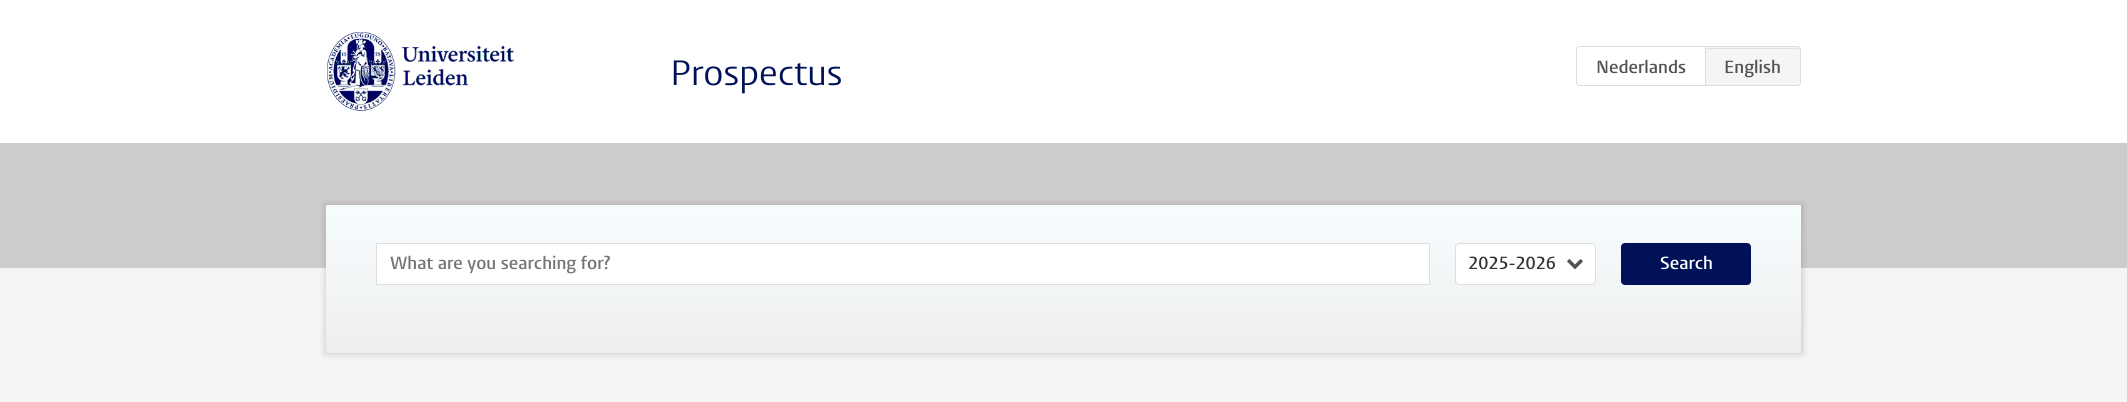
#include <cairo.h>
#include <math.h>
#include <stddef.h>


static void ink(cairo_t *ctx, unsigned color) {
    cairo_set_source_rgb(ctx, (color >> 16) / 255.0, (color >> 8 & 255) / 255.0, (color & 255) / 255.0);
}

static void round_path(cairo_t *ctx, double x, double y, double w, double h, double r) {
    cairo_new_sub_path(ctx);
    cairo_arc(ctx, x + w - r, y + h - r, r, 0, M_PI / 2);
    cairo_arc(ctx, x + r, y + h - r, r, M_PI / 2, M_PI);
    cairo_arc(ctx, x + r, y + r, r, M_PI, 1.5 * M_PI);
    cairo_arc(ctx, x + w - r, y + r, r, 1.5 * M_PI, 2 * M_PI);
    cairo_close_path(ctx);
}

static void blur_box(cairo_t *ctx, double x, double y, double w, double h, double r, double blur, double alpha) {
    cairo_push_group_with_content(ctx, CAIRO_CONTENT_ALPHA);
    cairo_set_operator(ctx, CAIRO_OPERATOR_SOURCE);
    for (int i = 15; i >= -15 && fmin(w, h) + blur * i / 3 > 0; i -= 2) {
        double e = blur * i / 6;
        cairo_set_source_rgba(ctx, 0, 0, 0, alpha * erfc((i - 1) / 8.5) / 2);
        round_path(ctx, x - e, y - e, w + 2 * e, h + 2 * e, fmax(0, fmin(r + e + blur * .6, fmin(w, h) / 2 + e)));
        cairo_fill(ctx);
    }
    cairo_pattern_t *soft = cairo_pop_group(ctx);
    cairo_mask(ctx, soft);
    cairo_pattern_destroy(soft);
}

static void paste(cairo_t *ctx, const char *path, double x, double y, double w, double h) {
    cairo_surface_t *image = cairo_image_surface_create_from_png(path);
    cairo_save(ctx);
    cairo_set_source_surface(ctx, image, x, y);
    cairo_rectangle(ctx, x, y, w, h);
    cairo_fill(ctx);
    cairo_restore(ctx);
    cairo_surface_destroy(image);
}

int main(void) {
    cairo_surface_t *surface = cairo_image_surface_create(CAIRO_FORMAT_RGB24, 2127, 402);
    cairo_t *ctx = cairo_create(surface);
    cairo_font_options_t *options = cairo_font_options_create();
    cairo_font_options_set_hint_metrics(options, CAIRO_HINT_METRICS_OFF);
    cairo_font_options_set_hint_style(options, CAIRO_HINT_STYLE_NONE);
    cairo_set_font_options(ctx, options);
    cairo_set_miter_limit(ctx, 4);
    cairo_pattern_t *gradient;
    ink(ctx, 0xF5F5F5);
    cairo_paint(ctx);
    ink(ctx, 0xFFFFFF);
    cairo_rectangle(ctx, 0, 0, 2127, 143);
    cairo_fill(ctx);
    paste(ctx, "media/1.png", 327, 32, 187, 79);
    cairo_select_font_face(ctx, "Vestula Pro", CAIRO_FONT_SLANT_NORMAL, CAIRO_FONT_WEIGHT_NORMAL);
    cairo_set_font_size(ctx, 35);
    ink(ctx, 0x001158);
    cairo_move_to(ctx, 670, 85);
    cairo_show_text(ctx, "Prospectus");
    cairo_new_path(ctx);
    cairo_move_to(ctx, 1580, 46.5);
    cairo_line_to(ctx, 1705.5, 46.5);
    cairo_line_to(ctx, 1705.5, 85.5);
    cairo_line_to(ctx, 1580, 85.5);
    cairo_curve_to(ctx, 1578, 85.5, 1576.5, 84, 1576.5, 82);
    cairo_line_to(ctx, 1576.5, 50);
    cairo_curve_to(ctx, 1576.5, 48, 1578, 46.5, 1580, 46.5);
    cairo_close_path(ctx);
    ink(ctx, 0xDDDDDD);
    cairo_set_line_width(ctx, 1);
    cairo_stroke(ctx);
    cairo_select_font_face(ctx, "Vestula Pro SemiBold", CAIRO_FONT_SLANT_NORMAL, CAIRO_FONT_WEIGHT_NORMAL);
    cairo_set_font_size(ctx, 17.5);
    ink(ctx, 0x535353);
    cairo_move_to(ctx, 1596, 73);
    cairo_show_text(ctx, "Nederlands");
    ink(ctx, 0xF5F5F5);
    cairo_new_path(ctx);
    cairo_move_to(ctx, 1705, 46);
    cairo_line_to(ctx, 1797, 46);
    cairo_curve_to(ctx, 1799, 46, 1801, 48, 1801, 50);
    cairo_line_to(ctx, 1801, 82);
    cairo_curve_to(ctx, 1801, 84, 1799, 86, 1797, 86);
    cairo_line_to(ctx, 1705, 86);
    cairo_close_path(ctx);
    cairo_fill(ctx);
    ink(ctx, 0xE1E1E1);
    cairo_new_path(ctx);
    cairo_move_to(ctx, 1706, 49);
    cairo_line_to(ctx, 1798, 49);
    cairo_curve_to(ctx, 1799, 49, 1800, 50, 1800, 51);
    cairo_curve_to(ctx, 1800, 49, 1799, 48, 1798, 48);
    cairo_line_to(ctx, 1706, 48);
    cairo_close_path(ctx);
    cairo_fill(ctx);
    cairo_new_path(ctx);
    cairo_move_to(ctx, 1705.5, 46.5);
    cairo_line_to(ctx, 1797, 46.5);
    cairo_curve_to(ctx, 1799, 46.5, 1800.5, 48, 1800.5, 50);
    cairo_line_to(ctx, 1800.5, 82);
    cairo_curve_to(ctx, 1800.5, 84, 1799, 85.5, 1797, 85.5);
    cairo_line_to(ctx, 1705.5, 85.5);
    cairo_close_path(ctx);
    ink(ctx, 0xDDDDDD);
    cairo_stroke(ctx);
    ink(ctx, 0x535353);
    cairo_move_to(ctx, 1724, 73);
    cairo_show_text(ctx, "English");
    ink(ctx, 0xCCCCCC);
    cairo_rectangle(ctx, 0, 143, 2127, 125);
    cairo_fill(ctx);
    ink(ctx, 0x786E64);
    blur_box(ctx, 325, 204, 1478, 150, 0, 3, 0.3);
    gradient = cairo_pattern_create_linear(1064, 353, 1064, 205);
    cairo_pattern_add_color_stop_rgba(gradient, 0, 0.933, 0.933, 0.933, 1);
    cairo_pattern_add_color_stop_rgba(gradient, 1, 0.969, 0.992, 1, 1);
    cairo_set_source(ctx, gradient);
    cairo_pattern_destroy(gradient);
    cairo_rectangle(ctx, 326, 205, 1475, 148);
    cairo_fill(ctx);
    ink(ctx, 0xFFFFFF);
    cairo_rectangle(ctx, 376.5, 243.5, 1053, 41);
    cairo_fill_preserve(ctx);
    ink(ctx, 0xDDDDDD);
    cairo_stroke(ctx);
    ink(ctx, 0x757575);
    cairo_move_to(ctx, 390, 269);
    cairo_show_text(ctx, "What are you searching for?");
    ink(ctx, 0xFFFFFF);
    round_path(ctx, 1455.5, 243.5, 140, 41, 3.5);
    cairo_fill_preserve(ctx);
    ink(ctx, 0xDDDDDD);
    cairo_stroke(ctx);
    ink(ctx, 0x333333);
    cairo_move_to(ctx, 1468, 269);
    cairo_show_text(ctx, "2025-2026");
    paste(ctx, "media/2.png", 1567, 259, 16, 11);
    ink(ctx, 0x001158);
    round_path(ctx, 1621.5, 243.5, 129, 41, 3.5);
    cairo_fill_preserve(ctx);
    cairo_stroke(ctx);
    ink(ctx, 0xFFFFFF);
    cairo_move_to(ctx, 1660, 269);
    cairo_show_text(ctx, "Search");
    cairo_surface_write_to_png(surface, "image.png");
    cairo_font_options_destroy(options);
    cairo_destroy(ctx);
    cairo_surface_destroy(surface);
    return 0;
}
